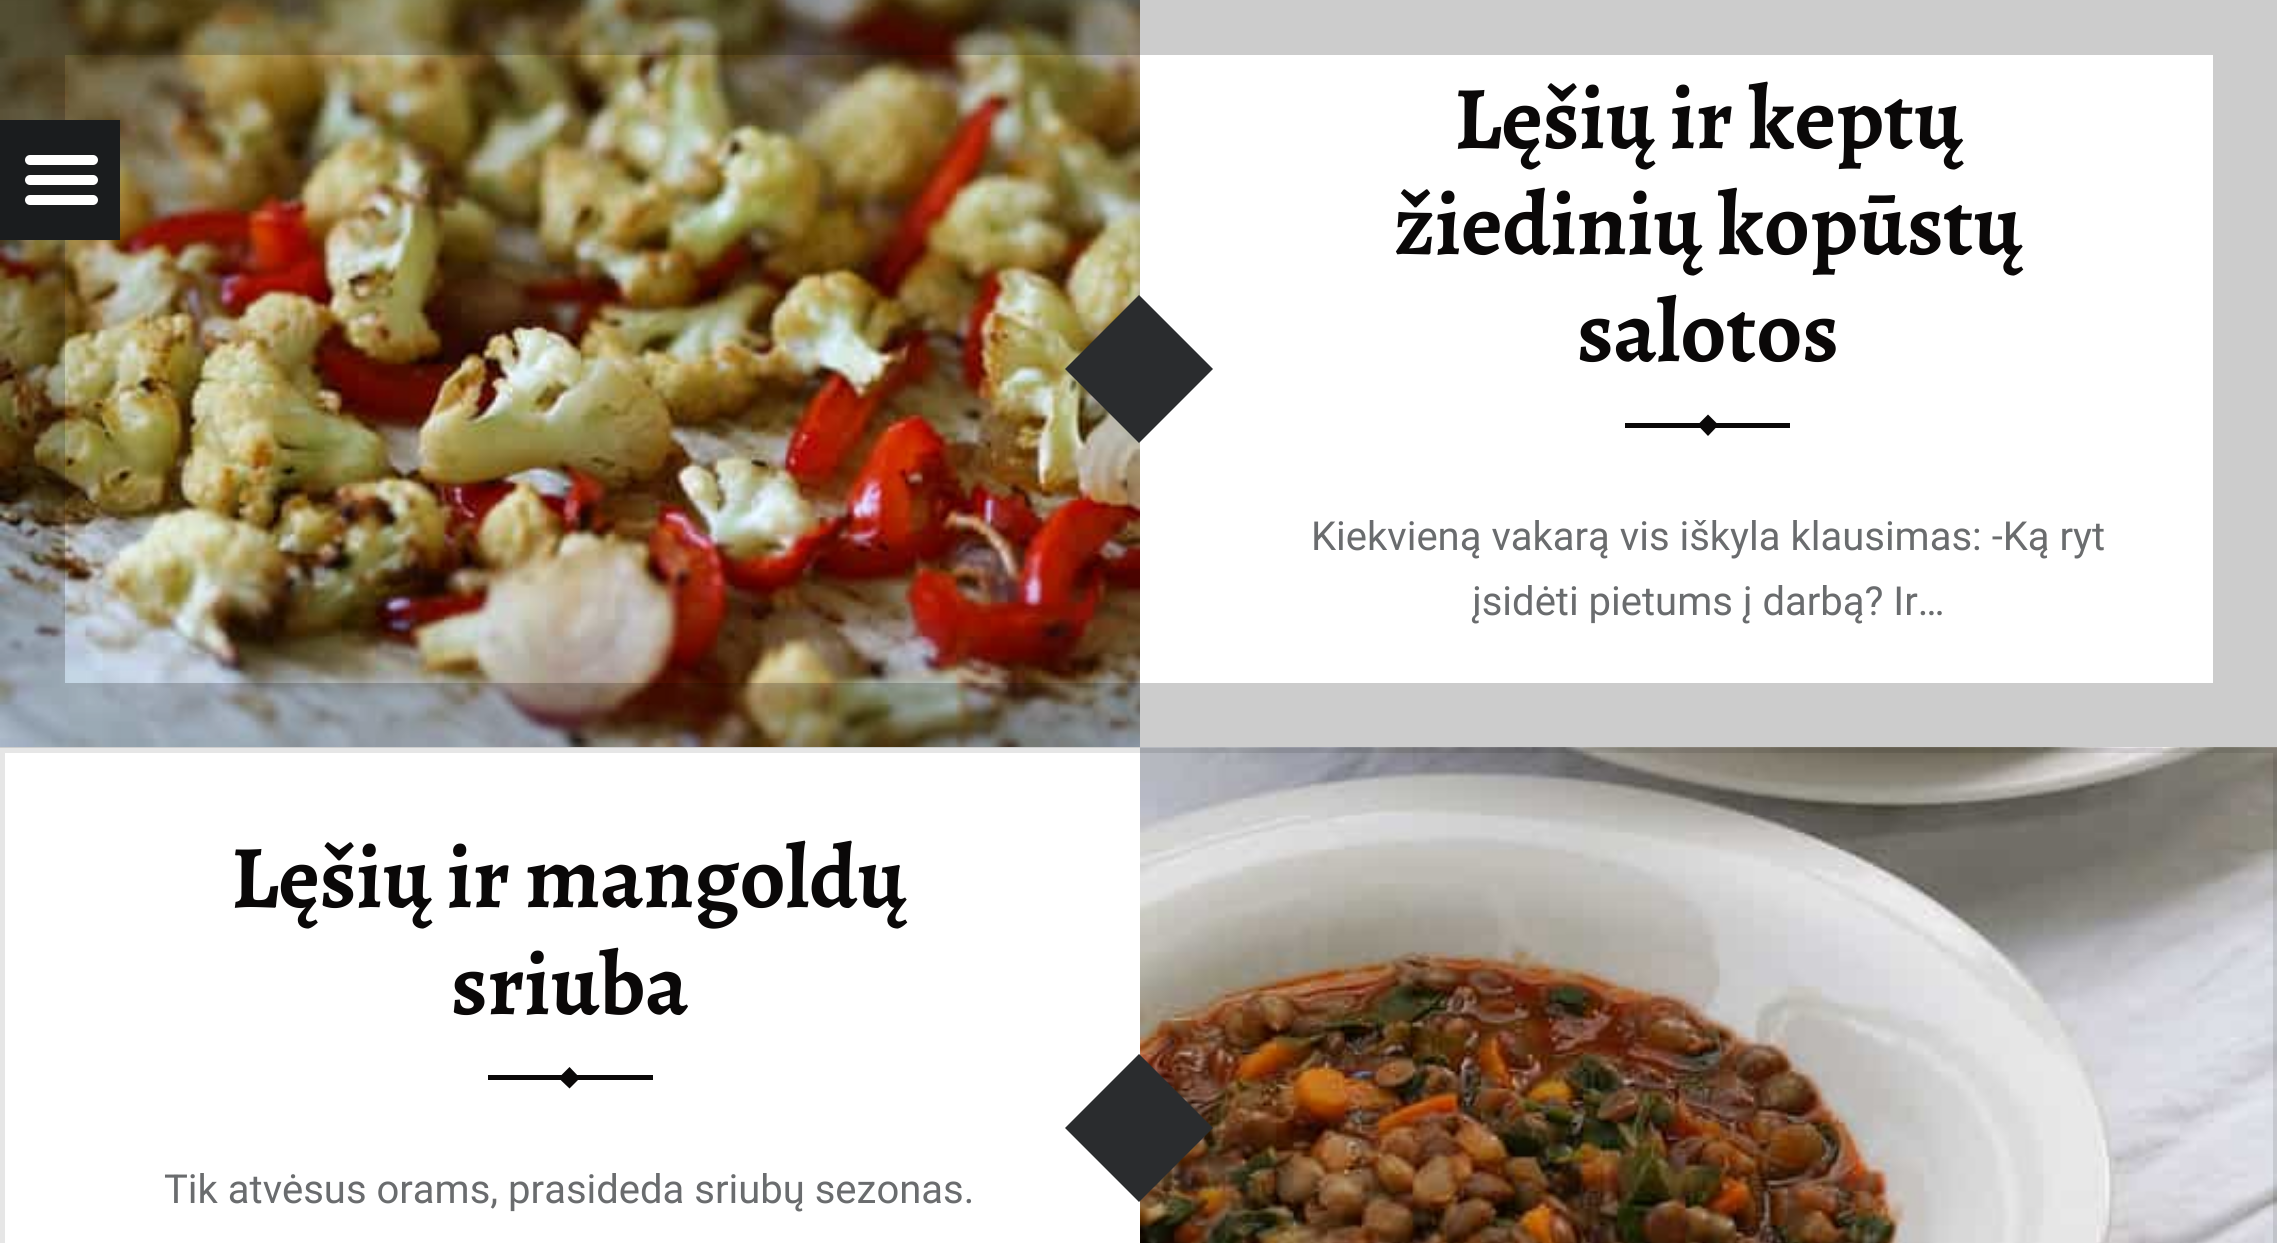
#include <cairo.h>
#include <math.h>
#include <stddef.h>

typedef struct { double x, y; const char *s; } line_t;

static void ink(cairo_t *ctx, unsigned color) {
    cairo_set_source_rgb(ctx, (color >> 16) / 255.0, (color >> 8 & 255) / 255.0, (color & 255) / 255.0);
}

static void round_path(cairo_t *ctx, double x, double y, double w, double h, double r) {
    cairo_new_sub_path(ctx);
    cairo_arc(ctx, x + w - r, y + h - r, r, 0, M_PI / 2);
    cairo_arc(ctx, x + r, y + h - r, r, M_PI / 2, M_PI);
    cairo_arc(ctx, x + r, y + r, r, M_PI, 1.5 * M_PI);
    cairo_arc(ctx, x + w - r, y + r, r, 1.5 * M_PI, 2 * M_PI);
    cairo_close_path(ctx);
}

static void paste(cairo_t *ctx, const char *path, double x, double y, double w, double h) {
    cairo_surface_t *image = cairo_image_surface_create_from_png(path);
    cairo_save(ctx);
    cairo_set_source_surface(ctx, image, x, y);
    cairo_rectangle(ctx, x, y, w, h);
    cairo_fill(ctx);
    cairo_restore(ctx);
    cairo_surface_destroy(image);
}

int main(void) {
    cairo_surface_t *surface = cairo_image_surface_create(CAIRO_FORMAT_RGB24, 2277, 1243);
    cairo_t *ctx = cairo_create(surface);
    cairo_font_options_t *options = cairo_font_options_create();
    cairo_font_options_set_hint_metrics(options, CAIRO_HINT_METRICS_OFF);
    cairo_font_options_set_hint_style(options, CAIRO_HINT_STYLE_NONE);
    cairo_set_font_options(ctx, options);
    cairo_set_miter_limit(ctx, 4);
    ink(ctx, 0xFFFFFF);
    cairo_paint(ctx);
    paste(ctx, "media/1.png", 0, 0, 1140, 747);
    ink(ctx, 0x2A2C2E);
    cairo_new_path(ctx);
    cairo_move_to(ctx, 1139, 295);
    cairo_line_to(ctx, 1213, 369);
    cairo_line_to(ctx, 1139, 443);
    cairo_line_to(ctx, 1065, 369);
    cairo_close_path(ctx);
    cairo_fill(ctx);
    ink(ctx, 0x0A0808);
    cairo_rectangle(ctx, 1625, 423, 165, 5);
    cairo_fill(ctx);
    cairo_new_path(ctx);
    cairo_move_to(ctx, 1708, 414.5);
    cairo_line_to(ctx, 1718.5, 425);
    cairo_line_to(ctx, 1708, 436);
    cairo_line_to(ctx, 1697.5, 425);
    cairo_close_path(ctx);
    cairo_fill(ctx);
    cairo_rectangle(ctx, 32.5, 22.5, 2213, 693);
    cairo_set_source_rgba(ctx, 0, 0, 0, 0.2);
    cairo_set_line_width(ctx, 65);
    cairo_stroke(ctx);
    ink(ctx, 0x1A1C1E);
    cairo_rectangle(ctx, 0, 120, 120, 120);
    cairo_fill(ctx);
    ink(ctx, 0xFFFFFF);
    round_path(ctx, 25, 155, 73, 10, 5);
    cairo_fill(ctx);
    round_path(ctx, 25, 175, 73, 10, 5);
    cairo_fill(ctx);
    round_path(ctx, 25, 195, 73, 10, 5);
    cairo_fill(ctx);
    cairo_select_font_face(ctx, "Alegreya", CAIRO_FONT_SLANT_NORMAL, CAIRO_FONT_WEIGHT_BOLD);
    cairo_set_font_size(ctx, 89.5);
    ink(ctx, 0x0A0808);
    {
        static const line_t items[] = {
            {1454, 148, "Lęšių ir keptų"},
            {1394, 254, "žiedinių kopūstų"},
            {1577, 361, "salotos"},
        };
        for (size_t i = 0; i < sizeof items / sizeof *items; i++) {
            cairo_move_to(ctx, items[i].x, items[i].y);
            cairo_show_text(ctx, items[i].s);
        }
    }
    cairo_select_font_face(ctx, "Roboto", CAIRO_FONT_SLANT_NORMAL, CAIRO_FONT_WEIGHT_NORMAL);
    cairo_set_font_size(ctx, 40);
    ink(ctx, 0x6A6C6E);
    cairo_move_to(ctx, 1311, 550);
    cairo_show_text(ctx, "Kiekvieną vakarą vis iškyla klausimas: -Ką ryt");
    cairo_move_to(ctx, 1472, 615);
    cairo_show_text(ctx, "įsidėti pietums į darbą? Ir…");
    paste(ctx, "media/2.png", 1140, 747, 1137, 496);
    ink(ctx, 0x0A0808);
    cairo_rectangle(ctx, 488, 1075, 165, 5);
    cairo_fill(ctx);
    cairo_new_path(ctx);
    cairo_move_to(ctx, 569.5, 1067);
    cairo_line_to(ctx, 580, 1078);
    cairo_line_to(ctx, 569.5, 1088.5);
    cairo_line_to(ctx, 558.5, 1078);
    cairo_close_path(ctx);
    cairo_fill(ctx);
    ink(ctx, 0x2A2C2E);
    cairo_new_path(ctx);
    cairo_move_to(ctx, 1139, 1054);
    cairo_line_to(ctx, 1213, 1128);
    cairo_line_to(ctx, 1139, 1202);
    cairo_line_to(ctx, 1065, 1128);
    cairo_close_path(ctx);
    cairo_fill(ctx);
    cairo_rectangle(ctx, 2.5, 750.5, 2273, 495);
    cairo_set_source_rgba(ctx, 0, 0, 0, 0.1);
    cairo_set_line_width(ctx, 5);
    cairo_stroke(ctx);
    cairo_select_font_face(ctx, "Alegreya", CAIRO_FONT_SLANT_NORMAL, CAIRO_FONT_WEIGHT_BOLD);
    cairo_set_font_size(ctx, 89.5);
    ink(ctx, 0x0A0808);
    cairo_move_to(ctx, 231, 907);
    cairo_show_text(ctx, "Lęšių ir mangoldų");
    cairo_move_to(ctx, 451, 1014);
    cairo_show_text(ctx, "sriuba");
    cairo_select_font_face(ctx, "Roboto", CAIRO_FONT_SLANT_NORMAL, CAIRO_FONT_WEIGHT_NORMAL);
    cairo_set_font_size(ctx, 40);
    ink(ctx, 0x6A6C6E);
    cairo_move_to(ctx, 164, 1203);
    cairo_show_text(ctx, "Tik atvėsus orams, prasideda sriubų sezonas.");
    cairo_surface_write_to_png(surface, "image.png");
    cairo_font_options_destroy(options);
    cairo_destroy(ctx);
    cairo_surface_destroy(surface);
    return 0;
}
